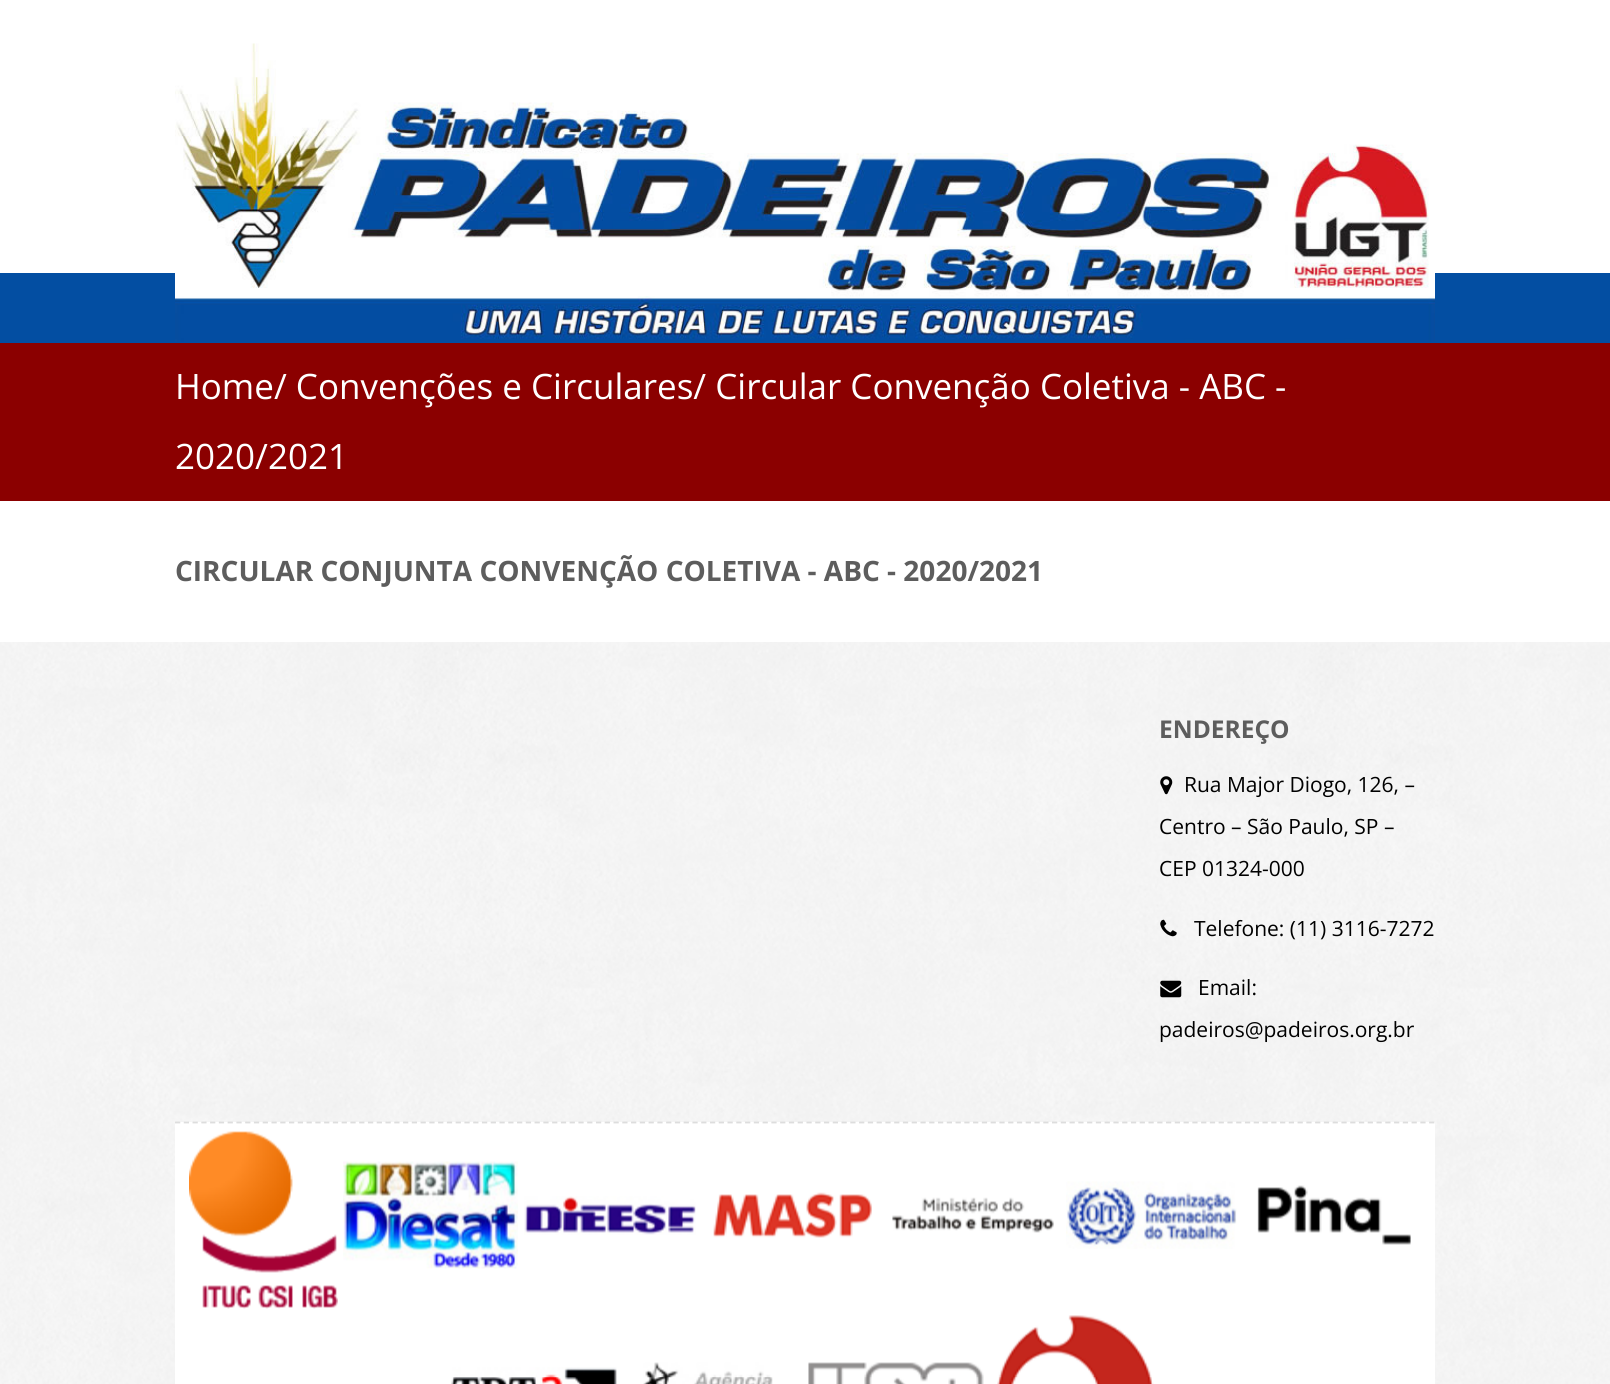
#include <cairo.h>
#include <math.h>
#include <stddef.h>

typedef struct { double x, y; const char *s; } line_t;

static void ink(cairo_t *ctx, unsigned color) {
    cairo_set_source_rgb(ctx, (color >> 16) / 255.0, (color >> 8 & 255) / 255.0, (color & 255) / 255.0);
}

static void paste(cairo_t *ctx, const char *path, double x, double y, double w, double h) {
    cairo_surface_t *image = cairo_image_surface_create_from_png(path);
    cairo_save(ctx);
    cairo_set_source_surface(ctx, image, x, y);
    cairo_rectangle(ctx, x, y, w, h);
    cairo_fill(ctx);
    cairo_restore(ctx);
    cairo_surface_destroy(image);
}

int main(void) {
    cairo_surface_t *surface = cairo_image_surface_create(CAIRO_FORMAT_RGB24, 1610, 1384);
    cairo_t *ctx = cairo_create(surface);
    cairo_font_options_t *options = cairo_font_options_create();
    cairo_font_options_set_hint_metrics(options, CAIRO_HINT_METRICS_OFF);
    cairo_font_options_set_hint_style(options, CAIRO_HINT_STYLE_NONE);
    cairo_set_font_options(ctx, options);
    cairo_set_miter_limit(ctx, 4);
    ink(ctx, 0xFFFFFF);
    cairo_paint(ctx);
    ink(ctx, 0x034EA2);
    cairo_rectangle(ctx, 0, 273, 1610, 70);
    cairo_fill(ctx);
    paste(ctx, "media/1.png", 175, 43, 1260, 299);
    ink(ctx, 0x8B0000);
    cairo_rectangle(ctx, 0, 343, 1610, 158);
    cairo_fill(ctx);
    cairo_select_font_face(ctx, "Open Sans", CAIRO_FONT_SLANT_NORMAL, CAIRO_FONT_WEIGHT_NORMAL);
    cairo_set_font_size(ctx, 35);
    ink(ctx, 0xFFFFFF);
    cairo_move_to(ctx, 175, 399);
    cairo_show_text(ctx, "Home/ Convenções e Circulares/ Circular Convenção Coletiva - ABC -");
    cairo_move_to(ctx, 175, 469);
    cairo_show_text(ctx, "2020/2021");
    cairo_select_font_face(ctx, "Open Sans", CAIRO_FONT_SLANT_NORMAL, CAIRO_FONT_WEIGHT_BOLD);
    cairo_set_font_size(ctx, 28);
    ink(ctx, 0x5D5D5D);
    cairo_move_to(ctx, 175, 581);
    cairo_show_text(ctx, "CIRCULAR CONJUNTA CONVENÇÃO COLETIVA - ABC - 2020/2021");
    paste(ctx, "media/2.png", 0, 642, 1610, 742);
    cairo_set_font_size(ctx, 24.5);
    cairo_move_to(ctx, 1159, 738);
    cairo_show_text(ctx, "ENDEREÇO");
    paste(ctx, "media/3.png", 1160, 776, 13, 19);
    cairo_select_font_face(ctx, "Open Sans", CAIRO_FONT_SLANT_NORMAL, CAIRO_FONT_WEIGHT_NORMAL);
    cairo_set_font_size(ctx, 21);
    ink(ctx, 0x000000);
    {
        static const line_t items[] = {
            {1184, 792, "Rua Major Diogo, 126, –"},
            {1159, 834, "Centro – São Paulo, SP –"},
            {1159, 876, "CEP 01324-000"},
        };
        for (size_t i = 0; i < sizeof items / sizeof *items; i++) {
            cairo_move_to(ctx, items[i].x, items[i].y);
            cairo_show_text(ctx, items[i].s);
        }
    }
    paste(ctx, "media/4.png", 1160, 919, 17, 18);
    cairo_move_to(ctx, 1194, 936);
    cairo_show_text(ctx, "Telefone: (11) 3116-7272");
    paste(ctx, "media/5.png", 1160, 980, 22, 18);
    cairo_move_to(ctx, 1198, 995);
    cairo_show_text(ctx, "Email:");
    cairo_move_to(ctx, 1159, 1037);
    cairo_show_text(ctx, "padeiros@padeiros.org.br");
    ink(ctx, 0xFFFFFF);
    cairo_rectangle(ctx, 175, 1122, 1260, 262);
    cairo_fill(ctx);
    cairo_new_path(ctx);
    cairo_move_to(ctx, 175, 1122.5);
    cairo_line_to(ctx, 1435, 1122.5);
    ink(ctx, 0xDDDDDD);
    cairo_set_line_width(ctx, 1.8);
    cairo_set_dash(ctx, (double[]){5.25, 3.52}, 2, 0);
    cairo_stroke(ctx);
    paste(ctx, "media/6.png", 189, 1131, 149, 178);
    paste(ctx, "media/7.png", 343, 1161, 175, 108);
    paste(ctx, "media/8.png", 524, 1196, 172, 39);
    paste(ctx, "media/9.png", 713, 1192, 159, 46);
    paste(ctx, "media/10.png", 892, 1197, 162, 36);
    paste(ctx, "media/11.png", 1066, 1181, 171, 68);
    paste(ctx, "media/12.png", 1257, 1185, 154, 60);
    paste(ctx, "media/13.png", 451, 1367, 166, 17);
    paste(ctx, "media/14.png", 643, 1362, 130, 22);
    paste(ctx, "media/15.png", 808, 1362, 176, 22);
    paste(ctx, "media/16.png", 997, 1315, 157, 69);
    cairo_surface_write_to_png(surface, "image.png");
    cairo_font_options_destroy(options);
    cairo_destroy(ctx);
    cairo_surface_destroy(surface);
    return 0;
}
